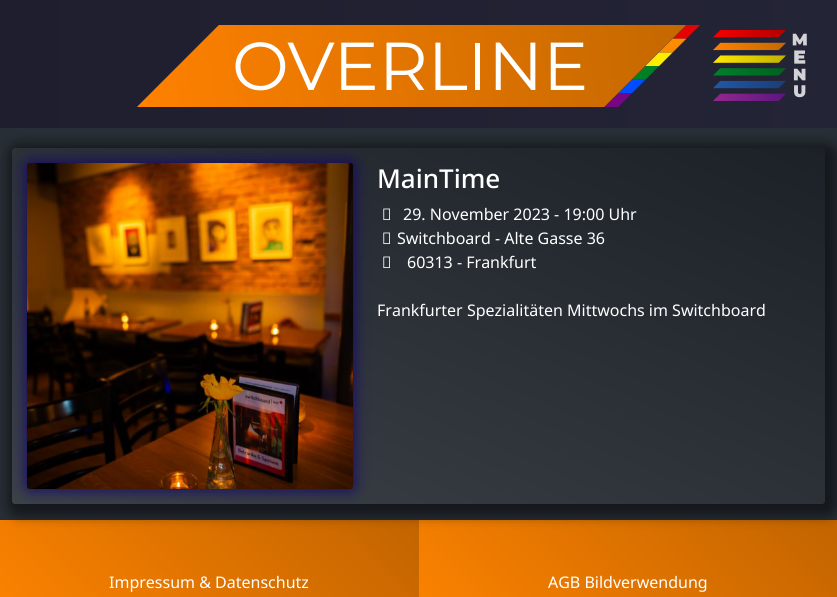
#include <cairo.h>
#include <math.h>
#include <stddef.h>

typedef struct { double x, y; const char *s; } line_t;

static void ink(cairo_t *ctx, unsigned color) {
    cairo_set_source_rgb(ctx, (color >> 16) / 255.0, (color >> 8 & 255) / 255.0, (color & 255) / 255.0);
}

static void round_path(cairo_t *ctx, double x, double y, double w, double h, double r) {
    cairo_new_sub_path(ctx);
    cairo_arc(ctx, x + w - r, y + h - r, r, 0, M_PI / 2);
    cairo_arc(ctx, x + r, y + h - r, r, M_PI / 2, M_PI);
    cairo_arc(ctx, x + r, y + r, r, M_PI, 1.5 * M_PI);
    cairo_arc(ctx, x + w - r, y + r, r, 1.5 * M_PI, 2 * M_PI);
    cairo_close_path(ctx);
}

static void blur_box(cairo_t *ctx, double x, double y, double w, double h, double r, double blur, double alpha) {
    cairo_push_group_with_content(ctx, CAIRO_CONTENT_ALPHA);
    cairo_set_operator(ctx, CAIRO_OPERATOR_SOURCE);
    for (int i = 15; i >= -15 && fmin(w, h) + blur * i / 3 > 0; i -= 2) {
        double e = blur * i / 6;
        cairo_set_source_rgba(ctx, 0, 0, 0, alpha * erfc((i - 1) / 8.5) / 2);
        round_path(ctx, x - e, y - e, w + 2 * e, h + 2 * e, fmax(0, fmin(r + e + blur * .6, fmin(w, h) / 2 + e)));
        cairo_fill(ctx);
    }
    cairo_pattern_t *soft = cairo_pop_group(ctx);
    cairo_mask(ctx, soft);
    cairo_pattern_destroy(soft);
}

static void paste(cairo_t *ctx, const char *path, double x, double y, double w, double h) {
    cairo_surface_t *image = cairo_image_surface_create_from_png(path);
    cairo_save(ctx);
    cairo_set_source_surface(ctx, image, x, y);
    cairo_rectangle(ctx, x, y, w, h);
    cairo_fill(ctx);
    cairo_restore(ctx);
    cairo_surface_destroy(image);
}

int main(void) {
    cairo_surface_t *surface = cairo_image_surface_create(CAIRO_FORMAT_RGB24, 837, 597);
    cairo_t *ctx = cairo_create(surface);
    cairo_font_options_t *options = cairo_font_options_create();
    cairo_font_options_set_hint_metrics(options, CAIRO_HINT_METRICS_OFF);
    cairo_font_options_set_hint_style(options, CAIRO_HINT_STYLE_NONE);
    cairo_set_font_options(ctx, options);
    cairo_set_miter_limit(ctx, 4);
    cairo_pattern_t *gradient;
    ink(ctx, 0x282E35);
    cairo_paint(ctx);
    gradient = cairo_pattern_create_linear(74, 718, 345, 446);
    cairo_pattern_add_color_stop_rgba(gradient, 0, 1, 0.518, 0, 1);
    cairo_pattern_add_color_stop_rgba(gradient, 1, 0.761, 0.392, 0, 1);
    cairo_set_source(ctx, gradient);
    cairo_pattern_destroy(gradient);
    cairo_rectangle(ctx, 0, 520, 419, 77);
    cairo_fill(ctx);
    gradient = cairo_pattern_create_linear(493, 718, 764, 447);
    cairo_pattern_add_color_stop_rgba(gradient, 0, 1, 0.518, 0, 1);
    cairo_pattern_add_color_stop_rgba(gradient, 1, 0.761, 0.392, 0, 1);
    cairo_set_source(ctx, gradient);
    cairo_pattern_destroy(gradient);
    cairo_rectangle(ctx, 419, 520, 418, 77);
    cairo_fill(ctx);
    ink(ctx, 0x000000);
    blur_box(ctx, 8, 144, 829, 372, 11, 6, 0.5);
    gradient = cairo_pattern_create_linear(0, 64, 837, 64);
    cairo_pattern_add_color_stop_rgba(gradient, 0, 0.118, 0.118, 0.18, 1);
    cairo_pattern_add_color_stop_rgba(gradient, 1, 0.141, 0.141, 0.216, 1);
    cairo_set_source(ctx, gradient);
    cairo_pattern_destroy(gradient);
    cairo_rectangle(ctx, 0, 0, 837, 128);
    cairo_fill(ctx);
    paste(ctx, "media/1.png", 137, 25, 563, 82);
    paste(ctx, "media/2.png", 713, 30, 94, 71);
    gradient = cairo_pattern_create_linear(288, 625, 549, 27);
    cairo_pattern_add_color_stop_rgba(gradient, 0, 0.235, 0.259, 0.278, 1);
    cairo_pattern_add_color_stop_rgba(gradient, 1, 0.11, 0.129, 0.157, 1);
    cairo_set_source(ctx, gradient);
    cairo_pattern_destroy(gradient);
    round_path(ctx, 12, 148, 813, 356, 3);
    cairo_fill(ctx);
    ink(ctx, 0x110070);
    blur_box(ctx, 27, 163, 326, 326, 3, 8, 1);
    paste(ctx, "media/3.png", 27, 163, 326, 326);
    cairo_select_font_face(ctx, "Noto Sans Medium", CAIRO_FONT_SLANT_NORMAL, CAIRO_FONT_WEIGHT_NORMAL);
    cairo_set_font_size(ctx, 26);
    ink(ctx, 0xFFFFFF);
    cairo_move_to(ctx, 377, 188);
    cairo_show_text(ctx, "MainTime");
    paste(ctx, "media/4.png", 383, 208, 7, 12);
    cairo_select_font_face(ctx, "Noto Sans", CAIRO_FONT_SLANT_NORMAL, CAIRO_FONT_WEIGHT_NORMAL);
    cairo_set_font_size(ctx, 16);
    cairo_move_to(ctx, 403, 220);
    cairo_show_text(ctx, "29. November 2023 - 19:00 Uhr");
    paste(ctx, "media/5.png", 383, 232, 7, 12);
    cairo_move_to(ctx, 397, 244);
    cairo_show_text(ctx, "Switchboard - Alte Gasse 36");
    paste(ctx, "media/6.png", 383, 256, 7, 12);
    {
        static const line_t items[] = {
            {407, 268, "60313 - Frankfurt"},
            {377, 316, "Frankfurter Spezialitäten Mittwochs im Switchboard"},
            {109, 588, "Impressum & Datenschutz"},
            {548, 588, "AGB Bildverwendung"},
        };
        for (size_t i = 0; i < sizeof items / sizeof *items; i++) {
            cairo_move_to(ctx, items[i].x, items[i].y);
            cairo_show_text(ctx, items[i].s);
        }
    }
    cairo_surface_write_to_png(surface, "image.png");
    cairo_font_options_destroy(options);
    cairo_destroy(ctx);
    cairo_surface_destroy(surface);
    return 0;
}
